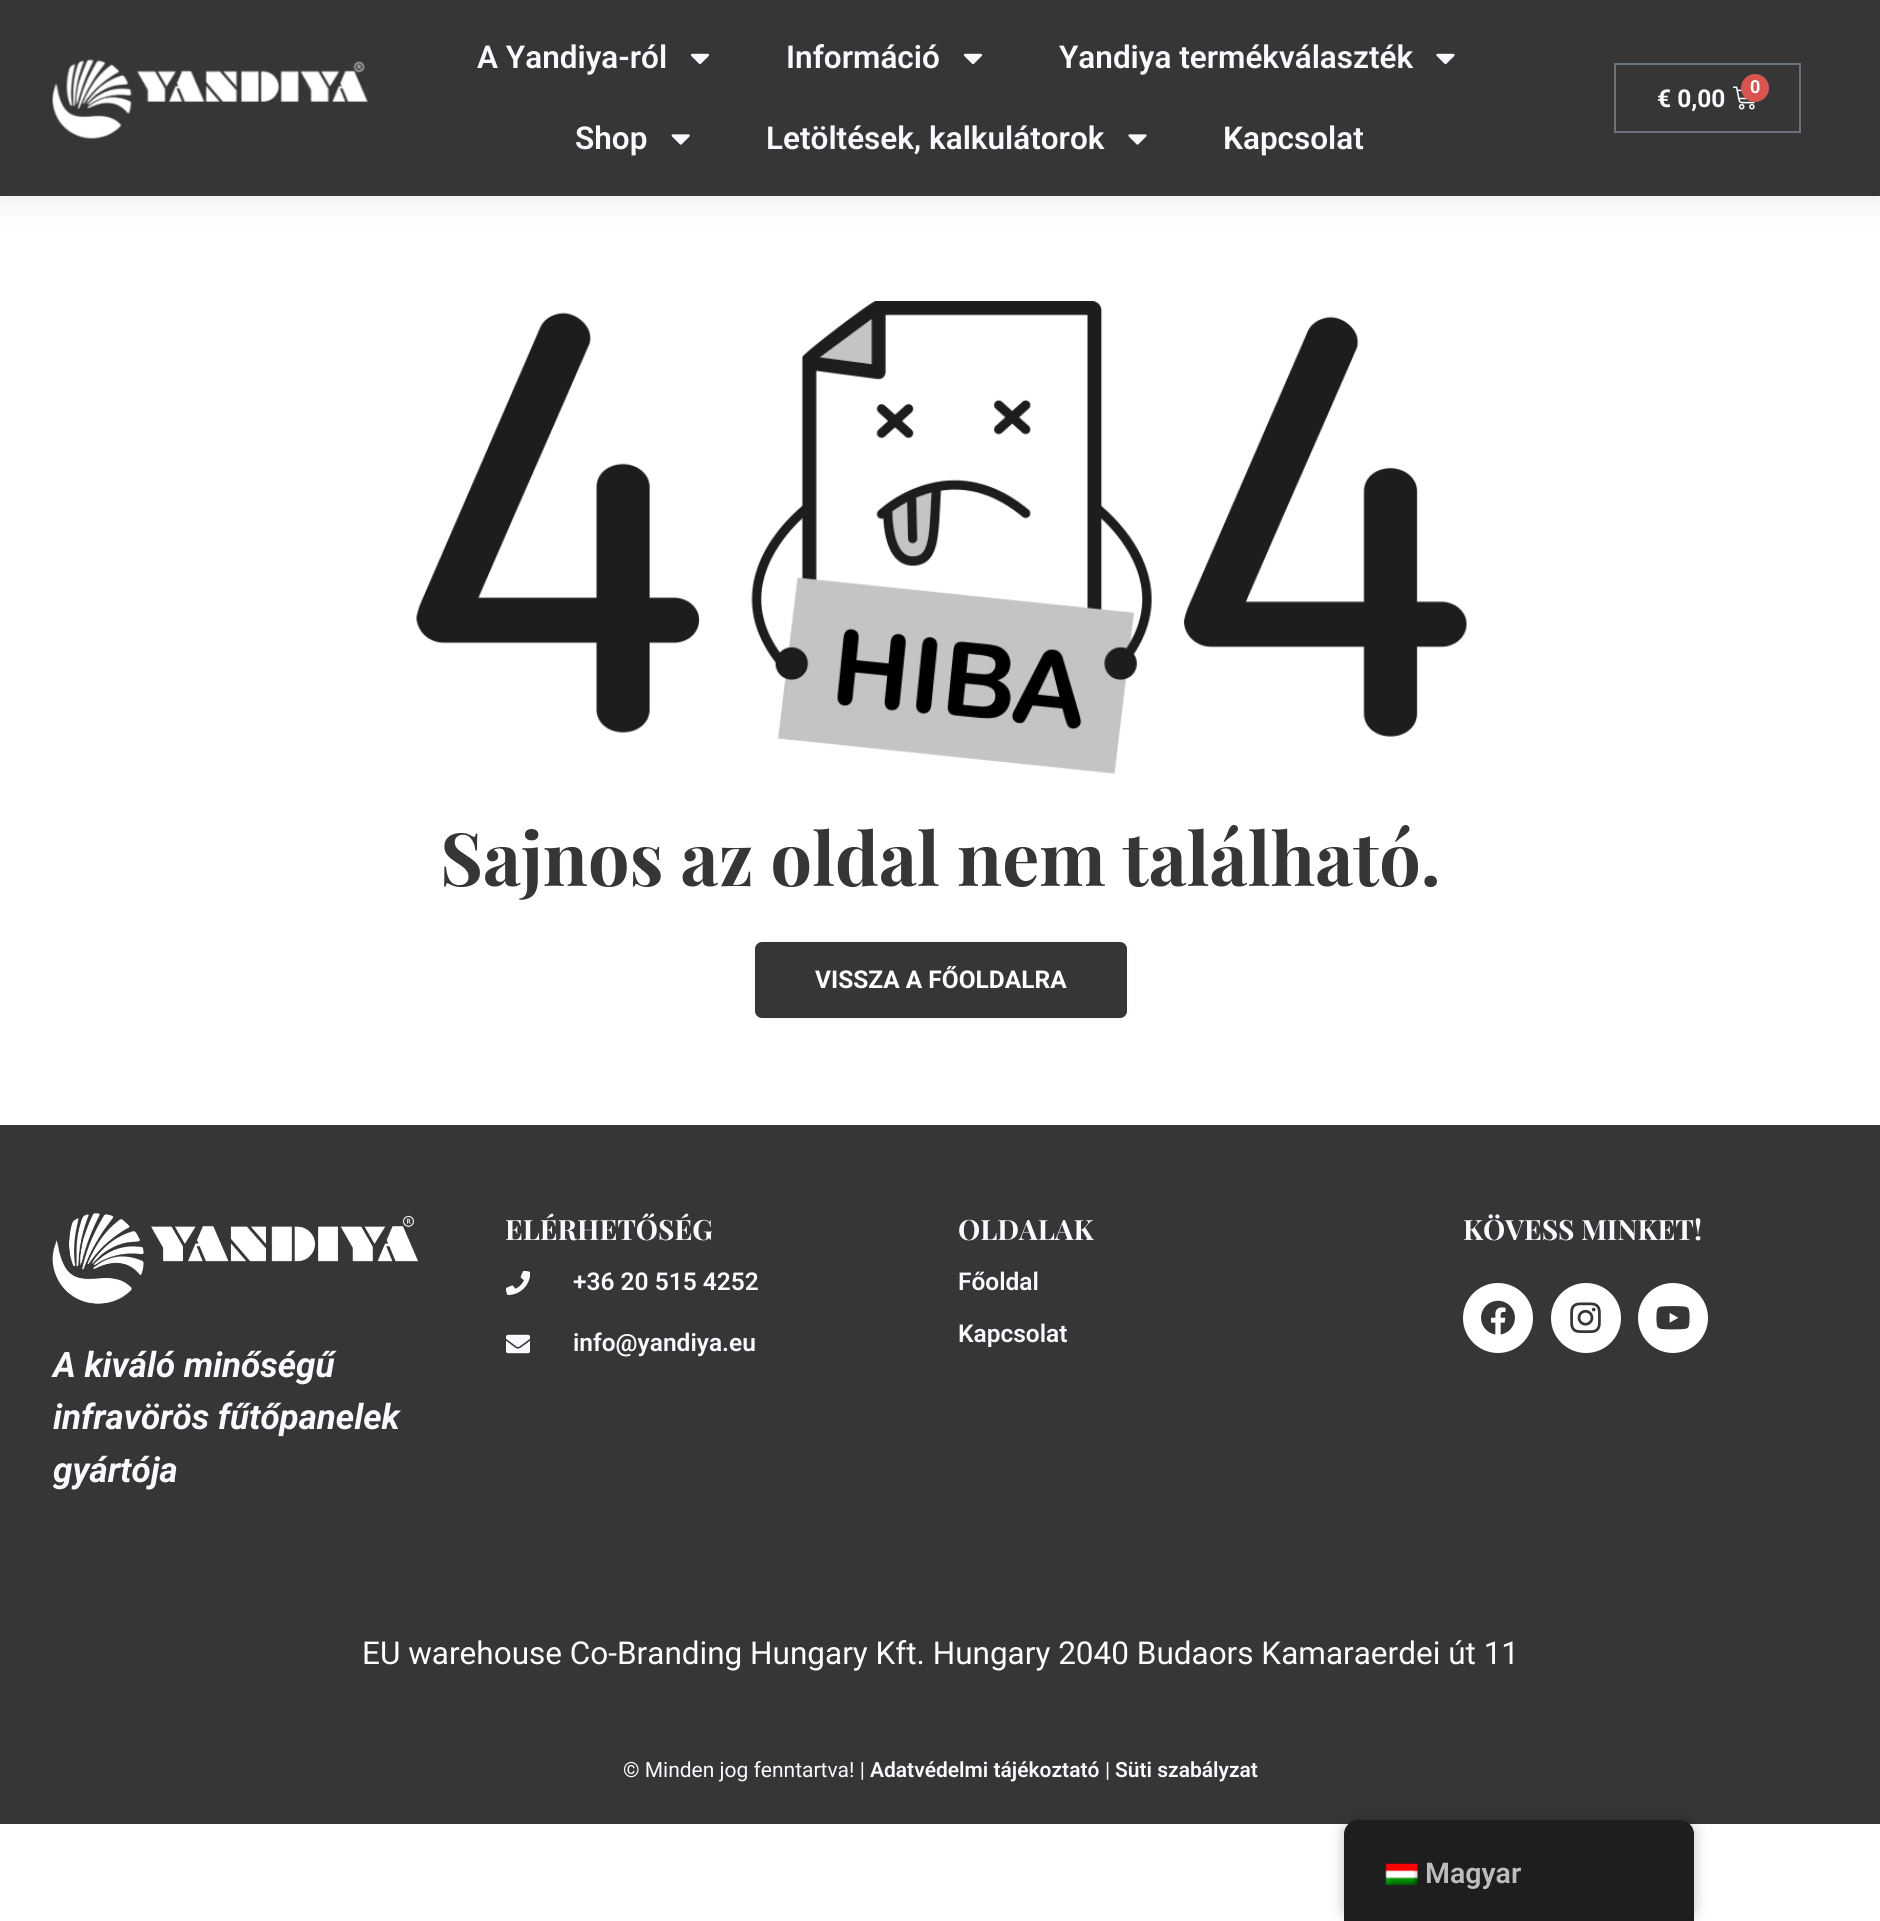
#include <cairo.h>
#include <math.h>
#include <stddef.h>

typedef struct { double x, y; const char *s; } line_t;

static void ink(cairo_t *ctx, unsigned color) {
    cairo_set_source_rgb(ctx, (color >> 16) / 255.0, (color >> 8 & 255) / 255.0, (color & 255) / 255.0);
}

static void round_path(cairo_t *ctx, double x, double y, double w, double h, double r) {
    cairo_new_sub_path(ctx);
    cairo_arc(ctx, x + w - r, y + h - r, r, 0, M_PI / 2);
    cairo_arc(ctx, x + r, y + h - r, r, M_PI / 2, M_PI);
    cairo_arc(ctx, x + r, y + r, r, M_PI, 1.5 * M_PI);
    cairo_arc(ctx, x + w - r, y + r, r, 1.5 * M_PI, 2 * M_PI);
    cairo_close_path(ctx);
}

static void blur_box(cairo_t *ctx, double x, double y, double w, double h, double r, double blur, double alpha) {
    cairo_push_group_with_content(ctx, CAIRO_CONTENT_ALPHA);
    cairo_set_operator(ctx, CAIRO_OPERATOR_SOURCE);
    for (int i = 15; i >= -15 && fmin(w, h) + blur * i / 3 > 0; i -= 2) {
        double e = blur * i / 6;
        cairo_set_source_rgba(ctx, 0, 0, 0, alpha * erfc((i - 1) / 8.5) / 2);
        round_path(ctx, x - e, y - e, w + 2 * e, h + 2 * e, fmax(0, fmin(r + e + blur * .6, fmin(w, h) / 2 + e)));
        cairo_fill(ctx);
    }
    cairo_pattern_t *soft = cairo_pop_group(ctx);
    cairo_mask(ctx, soft);
    cairo_pattern_destroy(soft);
}

static void paste(cairo_t *ctx, const char *path, double x, double y, double w, double h) {
    cairo_surface_t *image = cairo_image_surface_create_from_png(path);
    cairo_save(ctx);
    cairo_set_source_surface(ctx, image, x, y);
    cairo_rectangle(ctx, x, y, w, h);
    cairo_fill(ctx);
    cairo_restore(ctx);
    cairo_surface_destroy(image);
}

int main(void) {
    cairo_surface_t *surface = cairo_image_surface_create(CAIRO_FORMAT_RGB24, 1880, 1921);
    cairo_t *ctx = cairo_create(surface);
    cairo_font_options_t *options = cairo_font_options_create();
    cairo_font_options_set_hint_metrics(options, CAIRO_HINT_METRICS_OFF);
    cairo_font_options_set_hint_style(options, CAIRO_HINT_STYLE_NONE);
    cairo_set_font_options(ctx, options);
    cairo_set_miter_limit(ctx, 4);
    ink(ctx, 0xFFFFFF);
    cairo_paint(ctx);
    ink(ctx, 0x000000);
    blur_box(ctx, 0, 0, 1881, 196, 0, 17.5, 0.1);
    ink(ctx, 0x363636);
    cairo_rectangle(ctx, 0, 0, 1880, 196);
    cairo_fill(ctx);
    paste(ctx, "media/1.png", 52, 59, 316, 80);
    cairo_select_font_face(ctx, "Roboto SemiBold", CAIRO_FONT_SLANT_NORMAL, CAIRO_FONT_WEIGHT_NORMAL);
    cairo_set_font_size(ctx, 31.5);
    ink(ctx, 0xF8FAFF);
    cairo_move_to(ctx, 477, 68);
    cairo_show_text(ctx, "A Yandiya-ról");
    paste(ctx, "media/2.png", 690, 53, 20, 12);
    cairo_move_to(ctx, 786, 68);
    cairo_show_text(ctx, "Információ");
    paste(ctx, "media/2.png", 963, 53, 20, 12);
    cairo_move_to(ctx, 1059, 68);
    cairo_show_text(ctx, "Yandiya termékválaszték");
    paste(ctx, "media/3.png", 1436, 53, 19, 12);
    cairo_move_to(ctx, 575, 149);
    cairo_show_text(ctx, "Shop");
    paste(ctx, "media/4.png", 671, 134, 19, 11);
    cairo_move_to(ctx, 766, 149);
    cairo_show_text(ctx, "Letöltések, kalkulátorok");
    paste(ctx, "media/5.png", 1128, 134, 19, 11);
    cairo_move_to(ctx, 1223, 149);
    cairo_show_text(ctx, "Kapcsolat");
    cairo_rectangle(ctx, 1615, 64, 185, 68);
    ink(ctx, 0x69727D);
    cairo_stroke(ctx);
    paste(ctx, "media/6.png", 1733, 86, 22, 24);
    ink(ctx, 0xD9534F);
    cairo_arc(ctx, 1755, 88, 14, 0, 2 * M_PI);
    cairo_fill(ctx);
    cairo_select_font_face(ctx, "Roboto", CAIRO_FONT_SLANT_NORMAL, CAIRO_FONT_WEIGHT_BOLD);
    cairo_set_font_size(ctx, 18);
    ink(ctx, 0xFFFFFF);
    cairo_move_to(ctx, 1750, 93);
    cairo_show_text(ctx, "0");
    cairo_set_font_size(ctx, 24.5);
    ink(ctx, 0xF8FAFF);
    cairo_move_to(ctx, 1657, 107);
    cairo_show_text(ctx, "€ 0,00");
    paste(ctx, "media/7.png", 416, 301, 1051, 473);
    cairo_select_font_face(ctx, "Playfair Display", CAIRO_FONT_SLANT_NORMAL, CAIRO_FONT_WEIGHT_BOLD);
    cairo_set_font_size(ctx, 73.5);
    ink(ctx, 0x363636);
    cairo_move_to(ctx, 440, 886);
    cairo_show_text(ctx, "Sajnos az oldal nem található.");
    round_path(ctx, 754, 941, 374, 78, 8);
    cairo_fill_preserve(ctx);
    ink(ctx, 0xF8FAFF);
    cairo_stroke(ctx);
    cairo_select_font_face(ctx, "Roboto", CAIRO_FONT_SLANT_NORMAL, CAIRO_FONT_WEIGHT_BOLD);
    cairo_set_font_size(ctx, 24.5);
    ink(ctx, 0xFFFFFF);
    cairo_move_to(ctx, 815, 988);
    cairo_show_text(ctx, "VISSZA A FŐOLDALRA");
    ink(ctx, 0x363636);
    cairo_rectangle(ctx, 0, 1125, 1880, 699);
    cairo_fill(ctx);
    cairo_select_font_face(ctx, "Playfair Display", CAIRO_FONT_SLANT_NORMAL, CAIRO_FONT_WEIGHT_BOLD);
    cairo_set_font_size(ctx, 28);
    ink(ctx, 0xF8FAFF);
    cairo_move_to(ctx, 505, 1240);
    cairo_show_text(ctx, "ELÉRHETŐSÉG");
    paste(ctx, "media/8.png", 506, 1271, 24, 24);
    cairo_select_font_face(ctx, "Roboto SemiBold", CAIRO_FONT_SLANT_NORMAL, CAIRO_FONT_WEIGHT_NORMAL);
    cairo_set_font_size(ctx, 24.5);
    cairo_move_to(ctx, 573, 1290);
    cairo_show_text(ctx, "+36 20 515 4252");
    paste(ctx, "media/9.png", 506, 1334, 24, 20);
    cairo_move_to(ctx, 573, 1351);
    cairo_show_text(ctx, "info@yandiya.eu");
    cairo_select_font_face(ctx, "Playfair Display", CAIRO_FONT_SLANT_NORMAL, CAIRO_FONT_WEIGHT_BOLD);
    cairo_set_font_size(ctx, 28);
    cairo_move_to(ctx, 958, 1240);
    cairo_show_text(ctx, "OLDALAK");
    cairo_select_font_face(ctx, "Roboto SemiBold", CAIRO_FONT_SLANT_NORMAL, CAIRO_FONT_WEIGHT_NORMAL);
    cairo_set_font_size(ctx, 24.5);
    cairo_move_to(ctx, 958, 1290);
    cairo_show_text(ctx, "Főoldal");
    cairo_move_to(ctx, 958, 1342);
    cairo_show_text(ctx, "Kapcsolat");
    cairo_select_font_face(ctx, "Playfair Display", CAIRO_FONT_SLANT_NORMAL, CAIRO_FONT_WEIGHT_BOLD);
    cairo_set_font_size(ctx, 28);
    cairo_move_to(ctx, 1463, 1240);
    cairo_show_text(ctx, "KÖVESS MINKET!");
    ink(ctx, 0xFFFFFF);
    cairo_new_path(ctx);
    cairo_arc(ctx, 1498, 1318, 35, 0, 2 * M_PI);
    cairo_fill(ctx);
    paste(ctx, "media/10.png", 1481, 1300, 34, 35);
    cairo_arc(ctx, 1586, 1318, 35, 0, 2 * M_PI);
    cairo_fill(ctx);
    paste(ctx, "media/11.png", 1570, 1302, 31, 32);
    cairo_arc(ctx, 1673, 1318, 35, 0, 2 * M_PI);
    cairo_fill(ctx);
    paste(ctx, "media/12.png", 1656, 1306, 34, 24);
    paste(ctx, "media/13.png", 52, 1212, 367, 92);
    cairo_select_font_face(ctx, "Roboto", CAIRO_FONT_SLANT_ITALIC, CAIRO_FONT_WEIGHT_BOLD);
    cairo_set_font_size(ctx, 35);
    ink(ctx, 0xF8FAFF);
    {
        static const line_t items[] = {
            {53, 1377, "A kiváló minőségű"},
            {53, 1429, "infravörös fűtőpanelek"},
            {53, 1482, "gyártója"},
        };
        for (size_t i = 0; i < sizeof items / sizeof *items; i++) {
            cairo_move_to(ctx, items[i].x, items[i].y);
            cairo_show_text(ctx, items[i].s);
        }
    }
    cairo_select_font_face(ctx, "Roboto", CAIRO_FONT_SLANT_NORMAL, CAIRO_FONT_WEIGHT_NORMAL);
    cairo_set_font_size(ctx, 31.5);
    ink(ctx, 0xFFFFFF);
    cairo_move_to(ctx, 362, 1664);
    cairo_show_text(ctx, "EU warehouse Co-Branding Hungary Kft. Hungary 2040 Budaors Kamaraerdei út 11");
    cairo_set_font_size(ctx, 21);
    ink(ctx, 0xF8FAFF);
    cairo_move_to(ctx, 623, 1777);
    cairo_show_text(ctx, "© Minden jog fenntartva! |");
    cairo_select_font_face(ctx, "Roboto SemiBold", CAIRO_FONT_SLANT_NORMAL, CAIRO_FONT_WEIGHT_NORMAL);
    cairo_move_to(ctx, 870, 1777);
    cairo_show_text(ctx, "Adatvédelmi tájékoztató");
    cairo_select_font_face(ctx, "Roboto", CAIRO_FONT_SLANT_NORMAL, CAIRO_FONT_WEIGHT_NORMAL);
    cairo_move_to(ctx, 1105, 1777);
    cairo_show_text(ctx, "|");
    cairo_select_font_face(ctx, "Roboto SemiBold", CAIRO_FONT_SLANT_NORMAL, CAIRO_FONT_WEIGHT_NORMAL);
    cairo_move_to(ctx, 1115, 1777);
    cairo_show_text(ctx, "Süti szabályzat");
    ink(ctx, 0x000000);
    blur_box(ctx, 1344, 1820, 350, 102, 14, 7, 0.25);
    ink(ctx, 0x1E1E1E);
    cairo_new_path(ctx);
    cairo_move_to(ctx, 1358, 1820);
    cairo_line_to(ctx, 1680, 1820);
    cairo_curve_to(ctx, 1687.5, 1820, 1694, 1826.5, 1694, 1834);
    cairo_line_to(ctx, 1694, 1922);
    cairo_line_to(ctx, 1344, 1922);
    cairo_line_to(ctx, 1344, 1834);
    cairo_curve_to(ctx, 1344, 1826.5, 1350.5, 1820, 1358, 1820);
    cairo_close_path(ctx);
    cairo_fill(ctx);
    paste(ctx, "media/14.png", 1385, 1863, 33, 23);
    cairo_set_font_size(ctx, 28.5);
    ink(ctx, 0xBDBDBD);
    cairo_move_to(ctx, 1425, 1883);
    cairo_show_text(ctx, "Magyar");
    cairo_surface_write_to_png(surface, "image.png");
    cairo_font_options_destroy(options);
    cairo_destroy(ctx);
    cairo_surface_destroy(surface);
    return 0;
}
